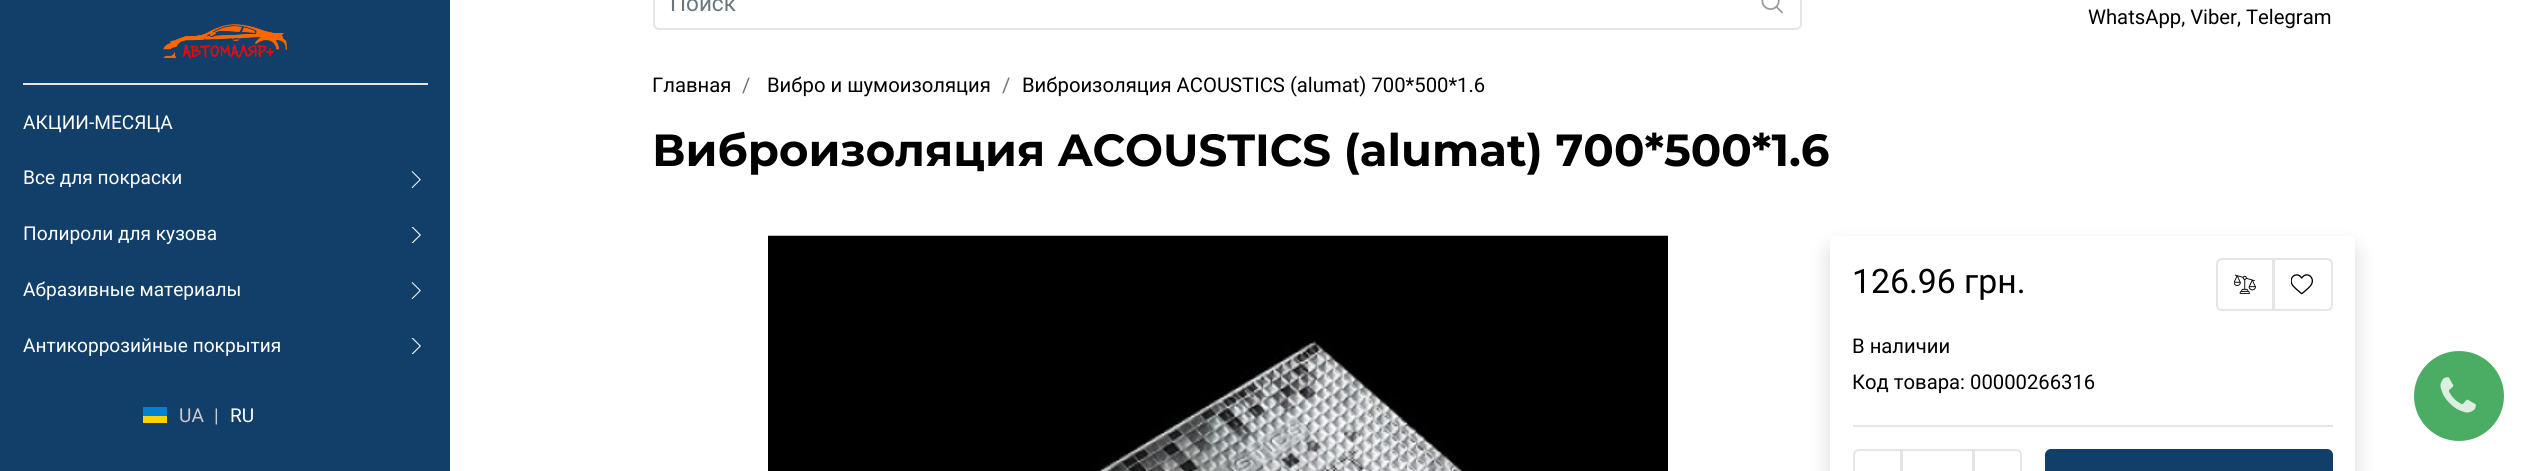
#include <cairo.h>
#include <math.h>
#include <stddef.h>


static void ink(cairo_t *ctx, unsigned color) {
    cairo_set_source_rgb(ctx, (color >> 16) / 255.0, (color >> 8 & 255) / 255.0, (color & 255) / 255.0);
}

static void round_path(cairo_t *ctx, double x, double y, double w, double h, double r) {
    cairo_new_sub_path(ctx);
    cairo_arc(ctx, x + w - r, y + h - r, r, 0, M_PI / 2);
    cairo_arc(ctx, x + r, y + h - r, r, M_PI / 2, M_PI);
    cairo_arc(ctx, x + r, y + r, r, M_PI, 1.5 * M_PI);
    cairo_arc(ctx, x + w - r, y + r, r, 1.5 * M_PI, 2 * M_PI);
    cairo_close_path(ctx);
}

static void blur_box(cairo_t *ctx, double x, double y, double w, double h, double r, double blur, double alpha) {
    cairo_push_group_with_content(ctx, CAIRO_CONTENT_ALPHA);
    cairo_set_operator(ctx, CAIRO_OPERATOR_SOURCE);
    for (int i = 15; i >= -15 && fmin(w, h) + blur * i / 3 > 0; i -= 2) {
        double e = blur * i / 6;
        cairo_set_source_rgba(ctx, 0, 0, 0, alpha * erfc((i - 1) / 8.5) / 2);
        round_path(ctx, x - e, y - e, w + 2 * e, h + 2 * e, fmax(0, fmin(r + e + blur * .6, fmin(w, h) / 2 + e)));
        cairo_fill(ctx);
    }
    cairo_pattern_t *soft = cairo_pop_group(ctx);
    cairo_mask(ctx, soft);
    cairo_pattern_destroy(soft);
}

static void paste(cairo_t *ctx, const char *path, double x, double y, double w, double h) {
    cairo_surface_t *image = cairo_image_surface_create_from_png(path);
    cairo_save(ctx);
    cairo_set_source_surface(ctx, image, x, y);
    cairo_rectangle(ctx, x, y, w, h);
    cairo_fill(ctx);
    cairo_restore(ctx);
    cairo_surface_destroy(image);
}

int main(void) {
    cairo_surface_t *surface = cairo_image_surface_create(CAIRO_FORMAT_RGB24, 2533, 471);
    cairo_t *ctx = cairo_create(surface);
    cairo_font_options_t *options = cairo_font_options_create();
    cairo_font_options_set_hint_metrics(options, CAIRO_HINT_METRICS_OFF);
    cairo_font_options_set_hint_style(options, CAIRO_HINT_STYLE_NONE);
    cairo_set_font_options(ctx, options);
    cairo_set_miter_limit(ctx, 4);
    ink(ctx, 0xFFFFFF);
    cairo_paint(ctx);
    ink(ctx, 0x123F69);
    cairo_rectangle(ctx, 0, 0, 450, 471);
    cairo_fill(ctx);
    ink(ctx, 0xE7E4E4);
    cairo_rectangle(ctx, 23, 83, 405, 2);
    cairo_fill(ctx);
    paste(ctx, "media/1.png", 163, 24, 124, 34);
    cairo_select_font_face(ctx, "Roboto", CAIRO_FONT_SLANT_NORMAL, CAIRO_FONT_WEIGHT_NORMAL);
    cairo_set_font_size(ctx, 19.1);
    ink(ctx, 0xFFFFFF);
    cairo_move_to(ctx, 23, 129);
    cairo_show_text(ctx, "АКЦИИ-МЕСЯЦА");
    cairo_move_to(ctx, 23, 184);
    cairo_show_text(ctx, "Все для покраски");
    paste(ctx, "media/2.png", 411, 171, 10, 17);
    cairo_move_to(ctx, 23, 240);
    cairo_show_text(ctx, "Полироли для кузова");
    cairo_save(ctx);
    cairo_rectangle(ctx, 405, 227, 23, 16);
    cairo_clip(ctx);
    cairo_new_path(ctx);
    cairo_move_to(ctx, 411.5, 227);
    cairo_line_to(ctx, 412.5, 226.5);
    cairo_line_to(ctx, 421, 235);
    cairo_line_to(ctx, 412.5, 243.5);
    cairo_line_to(ctx, 411.5, 243);
    cairo_line_to(ctx, 419.5, 235);
    cairo_close_path(ctx);
    cairo_fill(ctx);
    cairo_restore(ctx);
    cairo_move_to(ctx, 23, 296);
    cairo_show_text(ctx, "Абразивные материалы");
    paste(ctx, "media/2.png", 411, 282, 10, 17);
    cairo_move_to(ctx, 23, 352);
    cairo_show_text(ctx, "Антикоррозийные покрытия");
    cairo_save(ctx);
    cairo_rectangle(ctx, 405, 338, 23, 16);
    cairo_clip(ctx);
    cairo_new_path(ctx);
    cairo_move_to(ctx, 411.5, 338);
    cairo_line_to(ctx, 412.5, 337.5);
    cairo_line_to(ctx, 421, 346);
    cairo_line_to(ctx, 412.5, 354.5);
    cairo_line_to(ctx, 411.5, 354);
    cairo_line_to(ctx, 419.5, 346);
    cairo_close_path(ctx);
    cairo_fill(ctx);
    cairo_restore(ctx);
    ink(ctx, 0x0082D1);
    cairo_rectangle(ctx, 143, 407, 24, 9);
    cairo_fill(ctx);
    ink(ctx, 0xFFD100);
    cairo_rectangle(ctx, 143, 416, 24, 7);
    cairo_fill(ctx);
    ink(ctx, 0xCCCCCC);
    cairo_move_to(ctx, 179, 422);
    cairo_show_text(ctx, "UA");
    cairo_move_to(ctx, 214, 422);
    cairo_show_text(ctx, "|");
    ink(ctx, 0xFFFFFF);
    cairo_move_to(ctx, 230, 422);
    cairo_show_text(ctx, "RU");
    round_path(ctx, 654, -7, 1147, 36, 5);
    ink(ctx, 0xE7E4E4);
    cairo_stroke(ctx);
    cairo_set_font_size(ctx, 22.5);
    ink(ctx, 0x6C757D);
    cairo_move_to(ctx, 670, 11);
    cairo_show_text(ctx, "Поиск");
    paste(ctx, "media/3.png", 1761, 0, 22, 14);
    cairo_set_font_size(ctx, 20.25);
    ink(ctx, 0x000000);
    cairo_move_to(ctx, 2088, 24);
    cairo_show_text(ctx, "WhatsApp, Viber, Telegram");
    cairo_move_to(ctx, 652, 92);
    cairo_show_text(ctx, "Главная");
    ink(ctx, 0x6C757D);
    cairo_move_to(ctx, 742, 92);
    cairo_show_text(ctx, "/");
    ink(ctx, 0x000000);
    cairo_move_to(ctx, 767, 92);
    cairo_show_text(ctx, "Вибро и шумоизоляция");
    ink(ctx, 0x6C757D);
    cairo_move_to(ctx, 1002, 92);
    cairo_show_text(ctx, "/");
    ink(ctx, 0x000000);
    cairo_move_to(ctx, 1022, 92);
    cairo_show_text(ctx, "Виброизоляция ACOUSTICS (alumat) 700*500*1.6");
    cairo_select_font_face(ctx, "Montserrat", CAIRO_FONT_SLANT_NORMAL, CAIRO_FONT_WEIGHT_BOLD);
    cairo_set_font_size(ctx, 45);
    cairo_move_to(ctx, 652, 166);
    cairo_show_text(ctx, "Виброизоляция ACOUSTICS (alumat) 700*500*1.6");
    paste(ctx, "media/4.png", 768, 235, 900, 236);
    cairo_save(ctx);
    cairo_set_fill_rule(ctx, CAIRO_FILL_RULE_EVEN_ODD);
    cairo_new_path(ctx);
    cairo_move_to(ctx, 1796, 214);
    cairo_line_to(ctx, 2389, 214);
    cairo_line_to(ctx, 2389, 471);
    cairo_line_to(ctx, 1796, 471);
    cairo_close_path(ctx);
    cairo_move_to(ctx, 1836, 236);
    cairo_line_to(ctx, 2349, 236);
    cairo_curve_to(ctx, 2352.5, 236, 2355, 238.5, 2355, 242);
    cairo_line_to(ctx, 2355, 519);
    cairo_curve_to(ctx, 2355, 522.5, 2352.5, 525, 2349, 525);
    cairo_line_to(ctx, 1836, 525);
    cairo_curve_to(ctx, 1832.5, 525, 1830, 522.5, 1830, 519);
    cairo_line_to(ctx, 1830, 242);
    cairo_curve_to(ctx, 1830, 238.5, 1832.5, 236, 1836, 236);
    cairo_close_path(ctx);
    cairo_clip(ctx);
    ink(ctx, 0x000000);
    blur_box(ctx, 1830, 248, 525, 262, 6, 11, 0.15);
    cairo_restore(ctx);
    cairo_select_font_face(ctx, "Roboto", CAIRO_FONT_SLANT_NORMAL, CAIRO_FONT_WEIGHT_NORMAL);
    cairo_set_font_size(ctx, 33.75);
    cairo_move_to(ctx, 1852, 293);
    cairo_show_text(ctx, "126.96 грн.");
    cairo_new_path(ctx);
    cairo_move_to(ctx, 2222, 259);
    cairo_line_to(ctx, 2273, 259);
    cairo_line_to(ctx, 2273, 310);
    cairo_line_to(ctx, 2222, 310);
    cairo_curve_to(ctx, 2219, 310, 2217, 308, 2217, 305);
    cairo_line_to(ctx, 2217, 264);
    cairo_curve_to(ctx, 2217, 261, 2219, 259, 2222, 259);
    cairo_close_path(ctx);
    ink(ctx, 0xE7E4E4);
    cairo_stroke(ctx);
    paste(ctx, "media/5.png", 2234, 274, 22, 20);
    cairo_new_path(ctx);
    cairo_move_to(ctx, 2274, 259);
    cairo_line_to(ctx, 2327, 259);
    cairo_curve_to(ctx, 2330, 259, 2332, 261, 2332, 264);
    cairo_line_to(ctx, 2332, 305);
    cairo_curve_to(ctx, 2332, 308, 2330, 310, 2327, 310);
    cairo_line_to(ctx, 2274, 310);
    cairo_close_path(ctx);
    cairo_stroke(ctx);
    paste(ctx, "media/6.png", 2291, 274, 22, 21);
    cairo_rectangle(ctx, 1853, 425, 480, 2);
    cairo_fill(ctx);
    cairo_set_font_size(ctx, 20.25);
    ink(ctx, 0x000000);
    cairo_move_to(ctx, 1852, 353);
    cairo_show_text(ctx, "В наличии");
    cairo_move_to(ctx, 1852, 389);
    cairo_show_text(ctx, "Код товара: 00000266316");
    cairo_rectangle(ctx, 1902, 450, 71, 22);
    ink(ctx, 0xE7E4E4);
    cairo_stroke(ctx);
    cairo_new_path(ctx);
    cairo_move_to(ctx, 1859, 450);
    cairo_line_to(ctx, 1901, 450);
    cairo_line_to(ctx, 1901, 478);
    cairo_line_to(ctx, 1859, 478);
    cairo_curve_to(ctx, 1856, 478, 1854, 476, 1854, 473);
    cairo_line_to(ctx, 1854, 455);
    cairo_curve_to(ctx, 1854, 452, 1856, 450, 1859, 450);
    cairo_close_path(ctx);
    cairo_stroke(ctx);
    cairo_new_path(ctx);
    cairo_move_to(ctx, 1974, 450);
    cairo_line_to(ctx, 2016, 450);
    cairo_curve_to(ctx, 2019, 450, 2021, 452, 2021, 455);
    cairo_line_to(ctx, 2021, 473);
    cairo_curve_to(ctx, 2021, 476, 2019, 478, 2016, 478);
    cairo_line_to(ctx, 1974, 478);
    cairo_close_path(ctx);
    cairo_stroke(ctx);
    ink(ctx, 0x123F69);
    round_path(ctx, 2046, 450, 286, 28, 5);
    cairo_fill_preserve(ctx);
    cairo_stroke(ctx);
    ink(ctx, 0x4BAD64);
    cairo_arc(ctx, 2459, 396, 45, 0, 2 * M_PI);
    cairo_fill(ctx);
    paste(ctx, "media/7.png", 2440, 377, 36, 36);
    cairo_surface_write_to_png(surface, "image.png");
    cairo_font_options_destroy(options);
    cairo_destroy(ctx);
    cairo_surface_destroy(surface);
    return 0;
}
